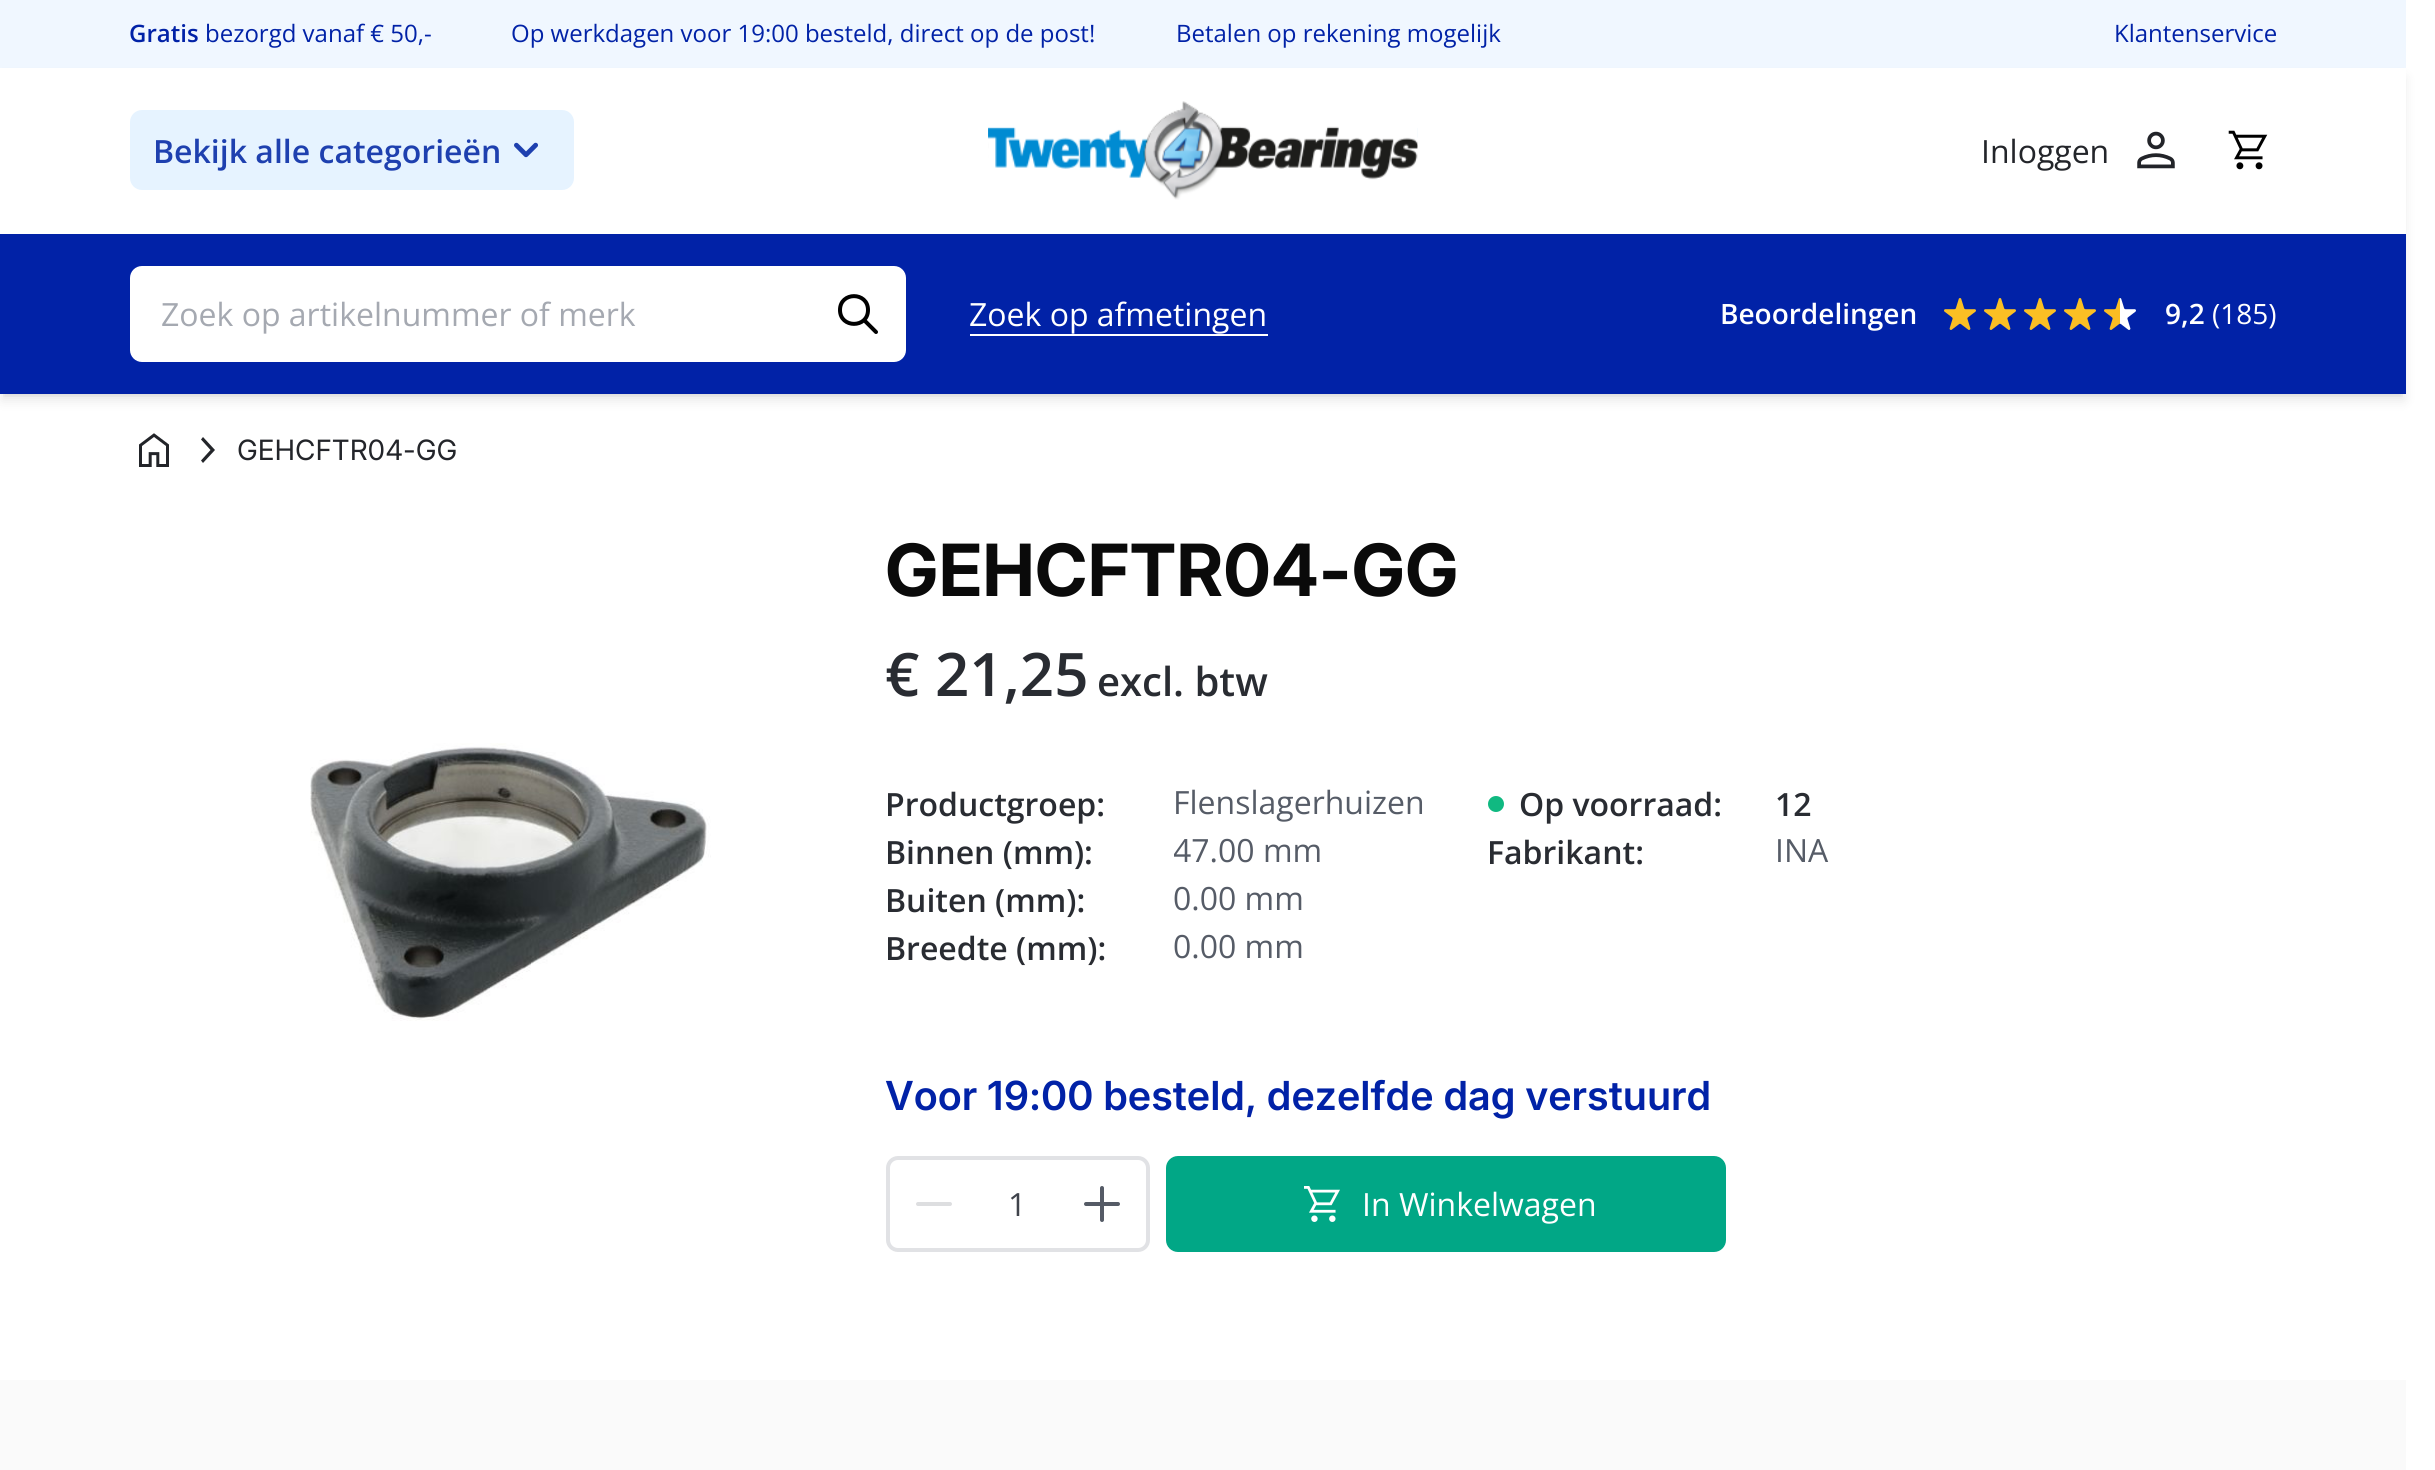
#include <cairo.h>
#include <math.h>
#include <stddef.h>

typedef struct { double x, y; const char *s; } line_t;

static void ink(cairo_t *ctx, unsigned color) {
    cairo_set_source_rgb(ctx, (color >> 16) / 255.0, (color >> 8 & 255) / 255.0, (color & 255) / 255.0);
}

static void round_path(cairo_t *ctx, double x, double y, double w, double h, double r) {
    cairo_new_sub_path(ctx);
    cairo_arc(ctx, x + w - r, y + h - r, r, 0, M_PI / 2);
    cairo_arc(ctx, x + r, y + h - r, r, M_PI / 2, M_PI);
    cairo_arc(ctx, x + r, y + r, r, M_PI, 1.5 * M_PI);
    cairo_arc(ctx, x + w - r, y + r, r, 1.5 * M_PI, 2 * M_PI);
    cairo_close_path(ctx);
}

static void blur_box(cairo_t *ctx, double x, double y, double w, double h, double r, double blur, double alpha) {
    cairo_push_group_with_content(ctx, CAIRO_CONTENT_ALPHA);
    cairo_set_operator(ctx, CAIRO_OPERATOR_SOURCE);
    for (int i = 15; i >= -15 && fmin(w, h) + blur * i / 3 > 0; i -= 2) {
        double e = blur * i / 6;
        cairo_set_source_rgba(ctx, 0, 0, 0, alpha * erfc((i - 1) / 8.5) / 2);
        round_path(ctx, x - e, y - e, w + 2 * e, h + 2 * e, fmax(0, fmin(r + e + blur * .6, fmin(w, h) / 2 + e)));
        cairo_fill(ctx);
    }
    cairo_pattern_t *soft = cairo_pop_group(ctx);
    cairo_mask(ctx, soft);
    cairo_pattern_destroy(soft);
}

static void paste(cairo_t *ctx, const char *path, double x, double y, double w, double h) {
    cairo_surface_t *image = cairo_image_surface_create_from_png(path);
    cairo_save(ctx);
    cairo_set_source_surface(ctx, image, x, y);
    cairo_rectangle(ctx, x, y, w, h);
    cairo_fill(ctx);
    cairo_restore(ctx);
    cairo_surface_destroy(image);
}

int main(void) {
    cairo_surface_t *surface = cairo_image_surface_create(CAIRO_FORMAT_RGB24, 2435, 1470);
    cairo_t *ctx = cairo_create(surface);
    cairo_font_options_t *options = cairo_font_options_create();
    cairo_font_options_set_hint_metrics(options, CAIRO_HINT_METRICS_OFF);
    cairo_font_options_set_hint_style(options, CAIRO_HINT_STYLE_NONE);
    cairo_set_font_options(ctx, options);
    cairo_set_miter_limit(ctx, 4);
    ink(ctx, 0xFFFFFF);
    cairo_paint(ctx);
    ink(ctx, 0xF0F7FF);
    cairo_rectangle(ctx, 0, 0, 2406, 68);
    cairo_fill(ctx);
    cairo_select_font_face(ctx, "Open Sans SemiBold", CAIRO_FONT_SLANT_NORMAL, CAIRO_FONT_WEIGHT_NORMAL);
    cairo_set_font_size(ctx, 24);
    ink(ctx, 0x0122A7);
    cairo_move_to(ctx, 129, 42);
    cairo_show_text(ctx, "Gratis");
    cairo_select_font_face(ctx, "Open Sans", CAIRO_FONT_SLANT_NORMAL, CAIRO_FONT_WEIGHT_NORMAL);
    {
        static const line_t items[] = {
            {205, 42, "bezorgd vanaf € 50,-"},
            {511, 42, "Op werkdagen voor 19:00 besteld, direct op de post!"},
            {1176, 42, "Betalen op rekening mogelijk"},
            {2114, 42, "Klantenservice"},
        };
        for (size_t i = 0; i < sizeof items / sizeof *items; i++) {
            cairo_move_to(ctx, items[i].x, items[i].y);
            cairo_show_text(ctx, items[i].s);
        }
    }
    cairo_save(ctx);
    cairo_rectangle(ctx, 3, 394, 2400, 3);
    cairo_clip(ctx);
    ink(ctx, 0x000000);
    blur_box(ctx, 4, 76, 2398, 318, 0, 4, 0.1);
    cairo_restore(ctx);
    cairo_save(ctx);
    cairo_set_fill_rule(ctx, CAIRO_FILL_RULE_EVEN_ODD);
    cairo_new_path(ctx);
    cairo_move_to(ctx, 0, 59);
    cairo_line_to(ctx, 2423, 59);
    cairo_line_to(ctx, 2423, 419);
    cairo_line_to(ctx, 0, 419);
    cairo_close_path(ctx);
    cairo_move_to(ctx, 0, 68);
    cairo_line_to(ctx, 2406, 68);
    cairo_line_to(ctx, 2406, 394);
    cairo_line_to(ctx, 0, 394);
    cairo_close_path(ctx);
    cairo_clip(ctx);
    ink(ctx, 0x000000);
    blur_box(ctx, 2, 78, 2402, 322, 0, 6, 0.1);
    cairo_restore(ctx);
    ink(ctx, 0xE6F3FF);
    round_path(ctx, 130, 110, 444, 80, 12);
    cairo_fill(ctx);
    cairo_select_font_face(ctx, "Open Sans SemiBold", CAIRO_FONT_SLANT_NORMAL, CAIRO_FONT_WEIGHT_NORMAL);
    cairo_set_font_size(ctx, 32);
    ink(ctx, 0x1E40AF);
    cairo_move_to(ctx, 153, 163);
    cairo_show_text(ctx, "Bekijk alle categorieën");
    paste(ctx, "media/1.png", 514, 142, 24, 16);
    paste(ctx, "media/2.png", 988, 101, 430, 99);
    cairo_select_font_face(ctx, "Open Sans", CAIRO_FONT_SLANT_NORMAL, CAIRO_FONT_WEIGHT_NORMAL);
    ink(ctx, 0x23252A);
    cairo_move_to(ctx, 1981, 163);
    cairo_show_text(ctx, "Inloggen");
    paste(ctx, "media/3.png", 2137, 131, 38, 38);
    paste(ctx, "media/4.png", 2228, 130, 40, 40);
    ink(ctx, 0x0122A7);
    cairo_rectangle(ctx, 0, 234, 2406, 160);
    cairo_fill(ctx);
    ink(ctx, 0xFFFFFF);
    round_path(ctx, 130, 266, 776, 96, 12);
    cairo_fill(ctx);
    ink(ctx, 0xA5A9B1);
    cairo_move_to(ctx, 161, 326);
    cairo_show_text(ctx, "Zoek op artikelnummer of merk");
    cairo_new_path(ctx);
    cairo_move_to(ctx, 876, 332);
    cairo_line_to(ctx, 864, 320);
    cairo_move_to(ctx, 868, 310);
    cairo_curve_to(ctx, 868, 328.5, 840, 328.5, 840, 310);
    cairo_curve_to(ctx, 840, 291.5, 868, 291.5, 868, 310);
    cairo_close_path(ctx);
    ink(ctx, 0x000000);
    cairo_set_line_width(ctx, 4);
    cairo_set_line_cap(ctx, CAIRO_LINE_CAP_ROUND);
    cairo_set_line_join(ctx, CAIRO_LINE_JOIN_ROUND);
    cairo_stroke(ctx);
    ink(ctx, 0xFFFFFF);
    cairo_move_to(ctx, 969, 326);
    cairo_show_text(ctx, "Zoek op afmetingen");
    cairo_rectangle(ctx, 970, 334, 298, 2);
    cairo_fill(ctx);
    cairo_select_font_face(ctx, "Open Sans SemiBold", CAIRO_FONT_SLANT_NORMAL, CAIRO_FONT_WEIGHT_NORMAL);
    cairo_set_font_size(ctx, 28);
    cairo_move_to(ctx, 1720, 324);
    cairo_show_text(ctx, "Beoordelingen");
    paste(ctx, "media/5.png", 1944, 298, 32, 32);
    paste(ctx, "media/5.png", 1984, 298, 32, 32);
    paste(ctx, "media/5.png", 2024, 298, 32, 32);
    paste(ctx, "media/5.png", 2064, 298, 32, 32);
    paste(ctx, "media/6.png", 2104, 298, 32, 32);
    cairo_move_to(ctx, 2165, 324);
    cairo_show_text(ctx, "9,2");
    cairo_select_font_face(ctx, "Open Sans", CAIRO_FONT_SLANT_NORMAL, CAIRO_FONT_WEIGHT_NORMAL);
    cairo_move_to(ctx, 2212, 324);
    cairo_show_text(ctx, "(185)");
    paste(ctx, "media/7.png", 139, 433, 30, 34);
    ink(ctx, 0x23252A);
    cairo_new_path(ctx);
    cairo_move_to(ctx, 210.5, 450);
    cairo_line_to(ctx, 201, 439.5);
    cairo_line_to(ctx, 203, 437);
    cairo_line_to(ctx, 215, 450);
    cairo_line_to(ctx, 203, 463);
    cairo_line_to(ctx, 201, 460.5);
    cairo_close_path(ctx);
    cairo_fill(ctx);
    cairo_select_font_face(ctx, "Inter", CAIRO_FONT_SLANT_NORMAL, CAIRO_FONT_WEIGHT_NORMAL);
    cairo_move_to(ctx, 237, 460);
    cairo_show_text(ctx, "GEHCFTR04-GG");
    paste(ctx, "media/8.png", 310, 743, 401, 278);
    cairo_select_font_face(ctx, "Inter", CAIRO_FONT_SLANT_NORMAL, CAIRO_FONT_WEIGHT_BOLD);
    cairo_set_font_size(ctx, 72);
    ink(ctx, 0x0A0A0A);
    cairo_move_to(ctx, 885, 596);
    cairo_show_text(ctx, "GEHCFTR04-GG");
    cairo_select_font_face(ctx, "Open Sans SemiBold", CAIRO_FONT_SLANT_NORMAL, CAIRO_FONT_WEIGHT_NORMAL);
    cairo_set_font_size(ctx, 60);
    ink(ctx, 0x292C32);
    cairo_move_to(ctx, 885, 696);
    cairo_show_text(ctx, "€ 21,25");
    cairo_set_font_size(ctx, 40);
    cairo_move_to(ctx, 1097, 696);
    cairo_show_text(ctx, "excl. btw");
    cairo_set_font_size(ctx, 32);
    cairo_move_to(ctx, 885, 816);
    cairo_show_text(ctx, "Productgroep:");
    cairo_select_font_face(ctx, "Open Sans", CAIRO_FONT_SLANT_NORMAL, CAIRO_FONT_WEIGHT_NORMAL);
    ink(ctx, 0x565C67);
    cairo_move_to(ctx, 1173, 814);
    cairo_show_text(ctx, "Flenslagerhuizen");
    cairo_select_font_face(ctx, "Open Sans SemiBold", CAIRO_FONT_SLANT_NORMAL, CAIRO_FONT_WEIGHT_NORMAL);
    ink(ctx, 0x292C32);
    cairo_move_to(ctx, 885, 864);
    cairo_show_text(ctx, "Binnen (mm):");
    cairo_save(ctx);
    cairo_rectangle(ctx, 1174, 828, 274, 48);
    cairo_clip(ctx);
    cairo_select_font_face(ctx, "Open Sans", CAIRO_FONT_SLANT_NORMAL, CAIRO_FONT_WEIGHT_NORMAL);
    ink(ctx, 0x565C67);
    cairo_move_to(ctx, 1173, 862);
    cairo_show_text(ctx, "47.00 mm");
    cairo_restore(ctx);
    cairo_move_to(ctx, 885, 912);
    cairo_show_text(ctx, "Buiten (mm):");
    cairo_select_font_face(ctx, "Open Sans", CAIRO_FONT_SLANT_NORMAL, CAIRO_FONT_WEIGHT_NORMAL);
    ink(ctx, 0x565C67);
    cairo_move_to(ctx, 1173, 910);
    cairo_show_text(ctx, "0.00 mm");
    cairo_select_font_face(ctx, "Open Sans SemiBold", CAIRO_FONT_SLANT_NORMAL, CAIRO_FONT_WEIGHT_NORMAL);
    ink(ctx, 0x292C32);
    cairo_move_to(ctx, 885, 960);
    cairo_show_text(ctx, "Breedte (mm):");
    cairo_select_font_face(ctx, "Open Sans", CAIRO_FONT_SLANT_NORMAL, CAIRO_FONT_WEIGHT_NORMAL);
    ink(ctx, 0x565C67);
    cairo_move_to(ctx, 1173, 958);
    cairo_show_text(ctx, "0.00 mm");
    ink(ctx, 0x10B981);
    cairo_new_path(ctx);
    cairo_arc(ctx, 1496, 804, 8, 0, 2 * M_PI);
    cairo_fill(ctx);
    cairo_select_font_face(ctx, "Open Sans SemiBold", CAIRO_FONT_SLANT_NORMAL, CAIRO_FONT_WEIGHT_NORMAL);
    ink(ctx, 0x292C32);
    {
        static const line_t items[] = {
            {1519, 816, "Op voorraad:"},
            {1775, 816, "12"},
            {1487, 864, "Fabrikant:"},
        };
        for (size_t i = 0; i < sizeof items / sizeof *items; i++) {
            cairo_move_to(ctx, items[i].x, items[i].y);
            cairo_show_text(ctx, items[i].s);
        }
    }
    cairo_select_font_face(ctx, "Open Sans", CAIRO_FONT_SLANT_NORMAL, CAIRO_FONT_WEIGHT_NORMAL);
    ink(ctx, 0x565C67);
    cairo_move_to(ctx, 1775, 862);
    cairo_show_text(ctx, "INA");
    cairo_select_font_face(ctx, "Inter SemiBold", CAIRO_FONT_SLANT_NORMAL, CAIRO_FONT_WEIGHT_NORMAL);
    cairo_set_font_size(ctx, 40);
    ink(ctx, 0x0122A7);
    cairo_move_to(ctx, 885, 1110);
    cairo_show_text(ctx, "Voor 19:00 besteld, dezelfde dag verstuurd");
    round_path(ctx, 888, 1158, 260, 92, 10);
    ink(ctx, 0xE1E2E5);
    cairo_set_line_cap(ctx, CAIRO_LINE_CAP_BUTT);
    cairo_set_line_join(ctx, CAIRO_LINE_JOIN_MITER);
    cairo_stroke(ctx);
    cairo_new_path(ctx);
    cairo_move_to(ctx, 950, 1204);
    cairo_line_to(ctx, 918, 1204);
    ink(ctx, 0xDDDEE0);
    cairo_set_line_cap(ctx, CAIRO_LINE_CAP_ROUND);
    cairo_set_line_join(ctx, CAIRO_LINE_JOIN_ROUND);
    cairo_stroke(ctx);
    cairo_select_font_face(ctx, "Open Sans", CAIRO_FONT_SLANT_NORMAL, CAIRO_FONT_WEIGHT_NORMAL);
    cairo_set_font_size(ctx, 32);
    ink(ctx, 0x3F434B);
    cairo_move_to(ctx, 1008, 1216);
    cairo_show_text(ctx, "1");
    cairo_new_path(ctx);
    cairo_move_to(ctx, 1102, 1188);
    cairo_line_to(ctx, 1102, 1220);
    cairo_move_to(ctx, 1118, 1204);
    cairo_line_to(ctx, 1086, 1204);
    ink(ctx, 0x555B66);
    cairo_stroke(ctx);
    ink(ctx, 0x01A786);
    round_path(ctx, 1166, 1156, 560, 96, 12);
    cairo_fill(ctx);
    paste(ctx, "media/9.png", 1304, 1186, 36, 36);
    ink(ctx, 0xFFFFFF);
    cairo_move_to(ctx, 1362, 1216);
    cairo_show_text(ctx, "In Winkelwagen");
    ink(ctx, 0xFAFAFA);
    cairo_rectangle(ctx, 0, 1380, 2406, 90);
    cairo_fill(ctx);
    cairo_surface_write_to_png(surface, "image.png");
    cairo_font_options_destroy(options);
    cairo_destroy(ctx);
    cairo_surface_destroy(surface);
    return 0;
}
